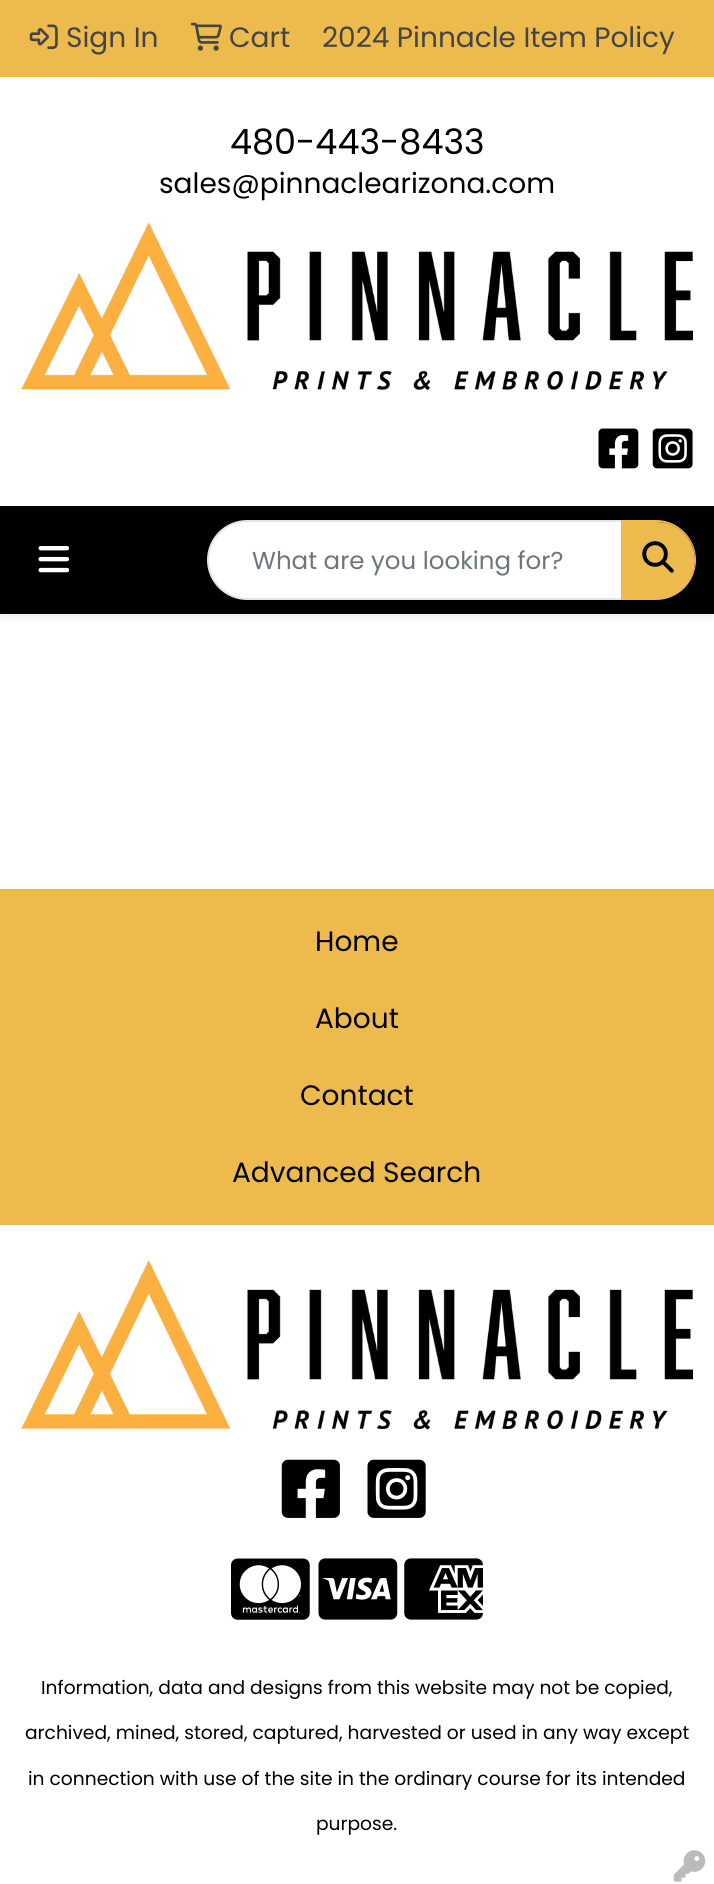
#include <cairo.h>
#include <math.h>
#include <stddef.h>

typedef struct { double x, y; const char *s; } line_t;

static void ink(cairo_t *ctx, unsigned color) {
    cairo_set_source_rgb(ctx, (color >> 16) / 255.0, (color >> 8 & 255) / 255.0, (color & 255) / 255.0);
}

static void round_path(cairo_t *ctx, double x, double y, double w, double h, double r) {
    cairo_new_sub_path(ctx);
    cairo_arc(ctx, x + w - r, y + h - r, r, 0, M_PI / 2);
    cairo_arc(ctx, x + r, y + h - r, r, M_PI / 2, M_PI);
    cairo_arc(ctx, x + r, y + r, r, M_PI, 1.5 * M_PI);
    cairo_arc(ctx, x + w - r, y + r, r, 1.5 * M_PI, 2 * M_PI);
    cairo_close_path(ctx);
}

static void blur_box(cairo_t *ctx, double x, double y, double w, double h, double r, double blur, double alpha) {
    cairo_push_group_with_content(ctx, CAIRO_CONTENT_ALPHA);
    cairo_set_operator(ctx, CAIRO_OPERATOR_SOURCE);
    for (int i = 15; i >= -15 && fmin(w, h) + blur * i / 3 > 0; i -= 2) {
        double e = blur * i / 6;
        cairo_set_source_rgba(ctx, 0, 0, 0, alpha * erfc((i - 1) / 8.5) / 2);
        round_path(ctx, x - e, y - e, w + 2 * e, h + 2 * e, fmax(0, fmin(r + e + blur * .6, fmin(w, h) / 2 + e)));
        cairo_fill(ctx);
    }
    cairo_pattern_t *soft = cairo_pop_group(ctx);
    cairo_mask(ctx, soft);
    cairo_pattern_destroy(soft);
}

static void paste(cairo_t *ctx, const char *path, double x, double y, double w, double h) {
    cairo_surface_t *image = cairo_image_surface_create_from_png(path);
    cairo_save(ctx);
    cairo_set_source_surface(ctx, image, x, y);
    cairo_rectangle(ctx, x, y, w, h);
    cairo_fill(ctx);
    cairo_restore(ctx);
    cairo_surface_destroy(image);
}

int main(void) {
    cairo_surface_t *surface = cairo_image_surface_create(CAIRO_FORMAT_RGB24, 714, 1884);
    cairo_t *ctx = cairo_create(surface);
    cairo_font_options_t *options = cairo_font_options_create();
    cairo_font_options_set_hint_metrics(options, CAIRO_HINT_METRICS_OFF);
    cairo_font_options_set_hint_style(options, CAIRO_HINT_STYLE_NONE);
    cairo_set_font_options(ctx, options);
    cairo_set_miter_limit(ctx, 4);
    ink(ctx, 0xFFFFFF);
    cairo_paint(ctx);
    ink(ctx, 0xEDBA4E);
    cairo_rectangle(ctx, 0, 0, 714, 77);
    cairo_fill(ctx);
    paste(ctx, "media/1.png", 29, 24, 29, 25);
    cairo_select_font_face(ctx, "Poppins", CAIRO_FONT_SLANT_NORMAL, CAIRO_FONT_WEIGHT_NORMAL);
    cairo_set_font_size(ctx, 28);
    ink(ctx, 0x444444);
    cairo_move_to(ctx, 66, 47);
    cairo_show_text(ctx, "Sign In");
    paste(ctx, "media/2.png", 190, 22, 32, 29);
    cairo_move_to(ctx, 229, 47);
    cairo_show_text(ctx, "Cart");
    cairo_move_to(ctx, 322, 47);
    cairo_show_text(ctx, "2024 Pinnacle Item Policy");
    cairo_set_font_size(ctx, 35);
    ink(ctx, 0x000000);
    cairo_move_to(ctx, 230, 154);
    cairo_show_text(ctx, "480-443-8433");
    cairo_set_font_size(ctx, 28);
    cairo_move_to(ctx, 159, 193);
    cairo_show_text(ctx, "sales@pinnaclearizona.com");
    paste(ctx, "media/3.png", 21, 222, 672, 169);
    paste(ctx, "media/4.png", 598, 428, 41, 41);
    paste(ctx, "media/5.png", 652, 428, 41, 41);
    ink(ctx, 0x000000);
    blur_box(ctx, 0, 509, 714, 109, 0, 3.5, 0.07);
    ink(ctx, 0x000000);
    cairo_rectangle(ctx, 0, 506, 714, 108);
    cairo_fill(ctx);
    paste(ctx, "media/6.png", 38, 546, 32, 27);
    ink(ctx, 0xFFFFFF);
    cairo_new_path(ctx);
    cairo_move_to(ctx, 247, 521);
    cairo_line_to(ctx, 622, 521);
    cairo_line_to(ctx, 622, 599);
    cairo_line_to(ctx, 247, 599);
    cairo_curve_to(ctx, 225.5, 599, 208, 581.5, 208, 560);
    cairo_curve_to(ctx, 208, 538.5, 225.5, 521, 247, 521);
    cairo_close_path(ctx);
    cairo_fill_preserve(ctx);
    ink(ctx, 0xE4E4E4);
    cairo_stroke(ctx);
    cairo_set_font_size(ctx, 24.5);
    ink(ctx, 0x6C757D);
    cairo_move_to(ctx, 252, 569);
    cairo_show_text(ctx, "What are you looking for?");
    ink(ctx, 0xEDBA4E);
    cairo_new_path(ctx);
    cairo_move_to(ctx, 621, 522);
    cairo_line_to(ctx, 656.5, 522);
    cairo_curve_to(ctx, 678, 522, 695, 539, 695, 560.5);
    cairo_curve_to(ctx, 695, 582, 678, 599, 656.5, 599);
    cairo_line_to(ctx, 621, 599);
    cairo_close_path(ctx);
    cairo_fill(ctx);
    cairo_set_fill_rule(ctx, CAIRO_FILL_RULE_EVEN_ODD);
    cairo_new_path(ctx);
    cairo_move_to(ctx, 621, 520);
    cairo_line_to(ctx, 656, 520);
    cairo_curve_to(ctx, 678, 520, 696, 538, 696, 560);
    cairo_curve_to(ctx, 696, 582, 678, 600, 656, 600);
    cairo_line_to(ctx, 621, 600);
    cairo_close_path(ctx);
    cairo_move_to(ctx, 621, 522);
    cairo_line_to(ctx, 656, 522);
    cairo_curve_to(ctx, 678, 522, 695, 539, 695, 560);
    cairo_curve_to(ctx, 695, 581, 678, 598, 656, 598);
    cairo_line_to(ctx, 621, 598);
    cairo_close_path(ctx);
    cairo_fill(ctx);
    paste(ctx, "media/7.png", 642, 541, 32, 32);
    cairo_rectangle(ctx, 0, 889, 714, 336);
    cairo_fill(ctx);
    cairo_set_font_size(ctx, 28);
    ink(ctx, 0x000000);
    {
        static const line_t items[] = {
            {315, 951, "Home"},
            {315, 1028, "About"},
            {300, 1105, "Contact"},
            {232, 1182, "Advanced Search"},
        };
        for (size_t i = 0; i < sizeof items / sizeof *items; i++) {
            cairo_move_to(ctx, items[i].x, items[i].y);
            cairo_show_text(ctx, items[i].s);
        }
    }
    paste(ctx, "media/8.png", 21, 1260, 672, 170);
    paste(ctx, "media/9.png", 281, 1459, 59, 59);
    paste(ctx, "media/10.png", 367, 1459, 59, 59);
    paste(ctx, "media/11.png", 231, 1558, 79, 62);
    paste(ctx, "media/12.png", 318, 1558, 80, 62);
    paste(ctx, "media/13.png", 404, 1558, 79, 62);
    cairo_set_font_size(ctx, 18.65);
    {
        static const line_t items[] = {
            {41, 1694, "Information, data and designs from this website may not be copied,"},
            {25, 1739, "archived, mined, stored, captured, harvested or used in any way except"},
            {28, 1785, "in connection with use of the site in the ordinary course for its intended"},
            {316, 1830, "purpose."},
        };
        for (size_t i = 0; i < sizeof items / sizeof *items; i++) {
            cairo_move_to(ctx, items[i].x, items[i].y);
            cairo_show_text(ctx, items[i].s);
        }
    }
    paste(ctx, "media/14.png", 673, 1850, 33, 32);
    cairo_surface_write_to_png(surface, "image.png");
    cairo_font_options_destroy(options);
    cairo_destroy(ctx);
    cairo_surface_destroy(surface);
    return 0;
}
